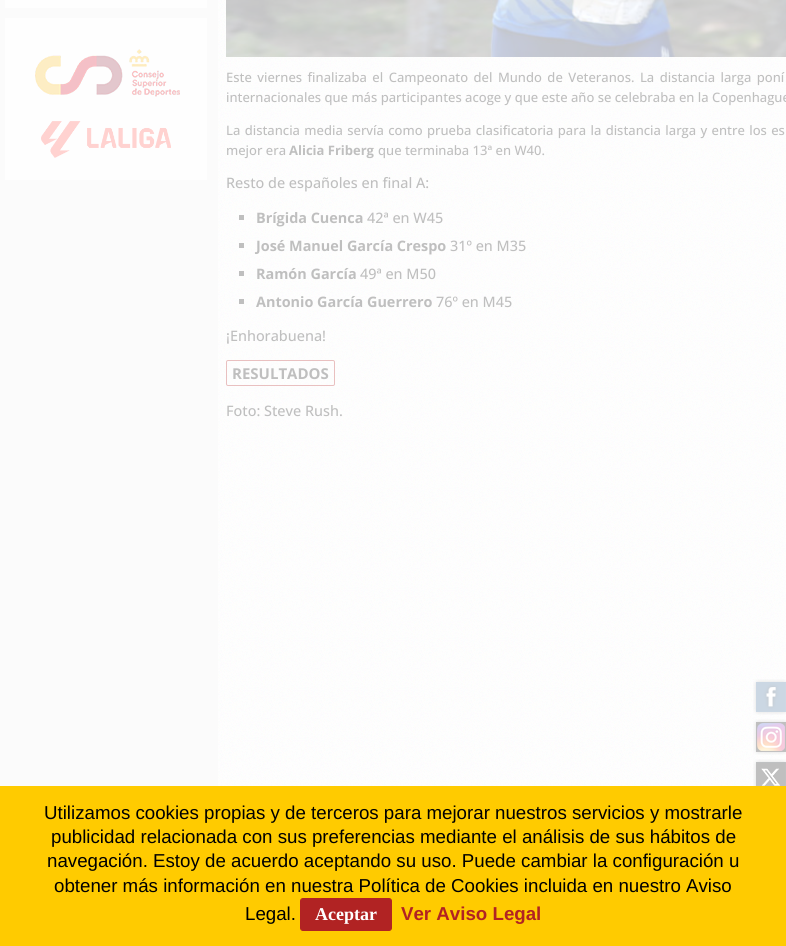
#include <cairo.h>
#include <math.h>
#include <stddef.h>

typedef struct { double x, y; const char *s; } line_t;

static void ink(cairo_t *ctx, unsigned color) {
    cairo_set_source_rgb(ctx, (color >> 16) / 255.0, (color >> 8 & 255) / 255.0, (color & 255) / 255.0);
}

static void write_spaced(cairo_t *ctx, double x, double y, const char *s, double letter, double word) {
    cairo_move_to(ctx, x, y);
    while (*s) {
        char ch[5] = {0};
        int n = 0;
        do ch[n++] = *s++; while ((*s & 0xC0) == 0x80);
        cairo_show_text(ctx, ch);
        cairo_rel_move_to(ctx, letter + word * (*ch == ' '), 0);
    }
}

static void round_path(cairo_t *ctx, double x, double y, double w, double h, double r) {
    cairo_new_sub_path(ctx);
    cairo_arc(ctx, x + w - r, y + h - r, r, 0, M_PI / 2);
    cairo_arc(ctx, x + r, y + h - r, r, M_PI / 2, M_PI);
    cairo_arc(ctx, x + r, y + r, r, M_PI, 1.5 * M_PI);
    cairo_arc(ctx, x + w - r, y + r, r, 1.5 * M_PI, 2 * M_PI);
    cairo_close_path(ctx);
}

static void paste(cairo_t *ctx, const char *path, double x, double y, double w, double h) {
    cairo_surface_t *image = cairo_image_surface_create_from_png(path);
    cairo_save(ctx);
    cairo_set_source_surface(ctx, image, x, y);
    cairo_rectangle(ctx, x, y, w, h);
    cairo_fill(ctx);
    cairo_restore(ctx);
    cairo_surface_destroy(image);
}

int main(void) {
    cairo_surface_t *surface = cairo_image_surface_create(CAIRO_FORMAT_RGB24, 786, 946);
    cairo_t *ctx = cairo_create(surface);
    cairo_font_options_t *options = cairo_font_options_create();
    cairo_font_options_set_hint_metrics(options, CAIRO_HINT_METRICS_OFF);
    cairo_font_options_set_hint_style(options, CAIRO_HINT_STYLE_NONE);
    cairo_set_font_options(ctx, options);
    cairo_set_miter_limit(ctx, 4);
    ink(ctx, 0xFBFBFB);
    cairo_paint(ctx);
    ink(ctx, 0xFEFEFE);
    cairo_rectangle(ctx, 5, 0, 202, 8);
    cairo_fill(ctx);
    cairo_rectangle(ctx, 5, 18, 202, 162);
    cairo_fill(ctx);
    paste(ctx, "media/1.png", 35, 49, 145, 48);
    paste(ctx, "media/2.png", 41, 121, 130, 37);
    cairo_rectangle(ctx, 218, 0, 568, 786);
    cairo_fill(ctx);
    paste(ctx, "media/3.png", 218, 0, 568, 786);
    paste(ctx, "media/4.png", 226, 0, 560, 57);
    cairo_select_font_face(ctx, "Open Sans Medium", CAIRO_FONT_SLANT_NORMAL, CAIRO_FONT_WEIGHT_NORMAL);
    cairo_set_font_size(ctx, 13);
    ink(ctx, 0xBFBFBF);
    write_spaced(ctx, 226, 82, "Este viernes finalizaba el Campeonato del Mundo de Veteranos. La distancia larga poní", 0, 2.1);
    cairo_move_to(ctx, 226, 102);
    cairo_show_text(ctx, "internacionales que más participantes acoge y que este año se celebraba en la Copenhague");
    write_spaced(ctx, 226, 135, "La distancia media servía como prueba clasificatoria para la distancia larga y entre los es", 0, 1);
    cairo_move_to(ctx, 226, 155);
    cairo_show_text(ctx, "mejor era");
    cairo_select_font_face(ctx, "Open Sans", CAIRO_FONT_SLANT_NORMAL, CAIRO_FONT_WEIGHT_BOLD);
    cairo_move_to(ctx, 289, 155);
    cairo_show_text(ctx, "Alicia Friberg");
    cairo_select_font_face(ctx, "Open Sans Medium", CAIRO_FONT_SLANT_NORMAL, CAIRO_FONT_WEIGHT_NORMAL);
    cairo_move_to(ctx, 378, 155);
    cairo_show_text(ctx, "que terminaba 13ª en W40.");
    cairo_set_font_size(ctx, 14.4);
    cairo_move_to(ctx, 226, 188);
    cairo_show_text(ctx, "Resto de españoles en final A:");
    cairo_rectangle(ctx, 239, 215, 5, 5);
    cairo_fill(ctx);
    cairo_select_font_face(ctx, "Open Sans", CAIRO_FONT_SLANT_NORMAL, CAIRO_FONT_WEIGHT_BOLD);
    cairo_move_to(ctx, 256, 223);
    cairo_show_text(ctx, "Brígida Cuenca");
    cairo_select_font_face(ctx, "Open Sans Medium", CAIRO_FONT_SLANT_NORMAL, CAIRO_FONT_WEIGHT_NORMAL);
    cairo_move_to(ctx, 367, 223);
    cairo_show_text(ctx, "42ª en W45");
    cairo_rectangle(ctx, 239, 243, 5, 5);
    cairo_fill(ctx);
    cairo_select_font_face(ctx, "Open Sans", CAIRO_FONT_SLANT_NORMAL, CAIRO_FONT_WEIGHT_BOLD);
    cairo_move_to(ctx, 256, 251);
    cairo_show_text(ctx, "José Manuel García Crespo");
    cairo_select_font_face(ctx, "Open Sans Medium", CAIRO_FONT_SLANT_NORMAL, CAIRO_FONT_WEIGHT_NORMAL);
    cairo_move_to(ctx, 450, 251);
    cairo_show_text(ctx, "31º en M35");
    cairo_rectangle(ctx, 239, 271, 5, 5);
    cairo_fill(ctx);
    cairo_select_font_face(ctx, "Open Sans", CAIRO_FONT_SLANT_NORMAL, CAIRO_FONT_WEIGHT_BOLD);
    cairo_move_to(ctx, 256, 279);
    cairo_show_text(ctx, "Ramón García");
    cairo_select_font_face(ctx, "Open Sans Medium", CAIRO_FONT_SLANT_NORMAL, CAIRO_FONT_WEIGHT_NORMAL);
    cairo_move_to(ctx, 360, 279);
    cairo_show_text(ctx, "49ª en M50");
    cairo_rectangle(ctx, 239, 299, 5, 5);
    cairo_fill(ctx);
    cairo_select_font_face(ctx, "Open Sans", CAIRO_FONT_SLANT_NORMAL, CAIRO_FONT_WEIGHT_BOLD);
    cairo_move_to(ctx, 256, 307);
    cairo_show_text(ctx, "Antonio García Guerrero");
    cairo_select_font_face(ctx, "Open Sans Medium", CAIRO_FONT_SLANT_NORMAL, CAIRO_FONT_WEIGHT_NORMAL);
    cairo_move_to(ctx, 436, 307);
    cairo_show_text(ctx, "76º en M45");
    cairo_move_to(ctx, 226, 341);
    cairo_show_text(ctx, "¡Enhorabuena!");
    round_path(ctx, 226.5, 360.5, 108, 25, 1.5);
    ink(ctx, 0xE9C0C0);
    cairo_set_line_width(ctx, 1);
    cairo_stroke(ctx);
    cairo_select_font_face(ctx, "Open Sans", CAIRO_FONT_SLANT_NORMAL, CAIRO_FONT_WEIGHT_BOLD);
    cairo_set_font_size(ctx, 15);
    ink(ctx, 0xBFBFBF);
    cairo_move_to(ctx, 232, 379);
    cairo_show_text(ctx, "RESULTADOS");
    cairo_select_font_face(ctx, "Open Sans Medium", CAIRO_FONT_SLANT_NORMAL, CAIRO_FONT_WEIGHT_NORMAL);
    cairo_set_font_size(ctx, 14.4);
    cairo_move_to(ctx, 226, 416);
    cairo_show_text(ctx, "Foto: Steve Rush.");
    paste(ctx, "media/5.png", 753, 679, 33, 36);
    paste(ctx, "media/6.png", 753, 719, 33, 36);
    paste(ctx, "media/7.png", 753, 759, 33, 27);
    ink(ctx, 0xFFCB00);
    cairo_rectangle(ctx, 0, 786, 786, 160);
    cairo_fill(ctx);
    cairo_select_font_face(ctx, "Liberation Sans", CAIRO_FONT_SLANT_NORMAL, CAIRO_FONT_WEIGHT_NORMAL);
    cairo_set_font_size(ctx, 18.7);
    ink(ctx, 0x000000);
    {
        static const line_t items[] = {
            {44, 819, "Utilizamos cookies propias y de terceros para mejorar nuestros servicios y mostrarle"},
            {51, 843, "publicidad relacionada con sus preferencias mediante el análisis de sus hábitos de"},
            {47, 867, "navegación. Estoy de acuerdo aceptando su uso. Puede cambiar la configuración u"},
            {54, 892, "obtener más información en nuestra Política de Cookies incluida en nuestro Aviso"},
            {245, 920, "Legal."},
        };
        for (size_t i = 0; i < sizeof items / sizeof *items; i++) {
            cairo_move_to(ctx, items[i].x, items[i].y);
            cairo_show_text(ctx, items[i].s);
        }
    }
    ink(ctx, 0xB12323);
    round_path(ctx, 300.5, 898.5, 91, 32, 2.5);
    cairo_fill_preserve(ctx);
    cairo_stroke(ctx);
    cairo_select_font_face(ctx, "Liberation Serif", CAIRO_FONT_SLANT_NORMAL, CAIRO_FONT_WEIGHT_BOLD);
    cairo_set_font_size(ctx, 18);
    ink(ctx, 0xFFFFFF);
    cairo_move_to(ctx, 315, 920);
    cairo_show_text(ctx, "Aceptar");
    cairo_select_font_face(ctx, "Liberation Sans", CAIRO_FONT_SLANT_NORMAL, CAIRO_FONT_WEIGHT_BOLD);
    cairo_set_font_size(ctx, 18.7);
    ink(ctx, 0xB12323);
    cairo_move_to(ctx, 401, 920);
    cairo_show_text(ctx, "Ver Aviso Legal");
    cairo_surface_write_to_png(surface, "image.png");
    cairo_font_options_destroy(options);
    cairo_destroy(ctx);
    cairo_surface_destroy(surface);
    return 0;
}
